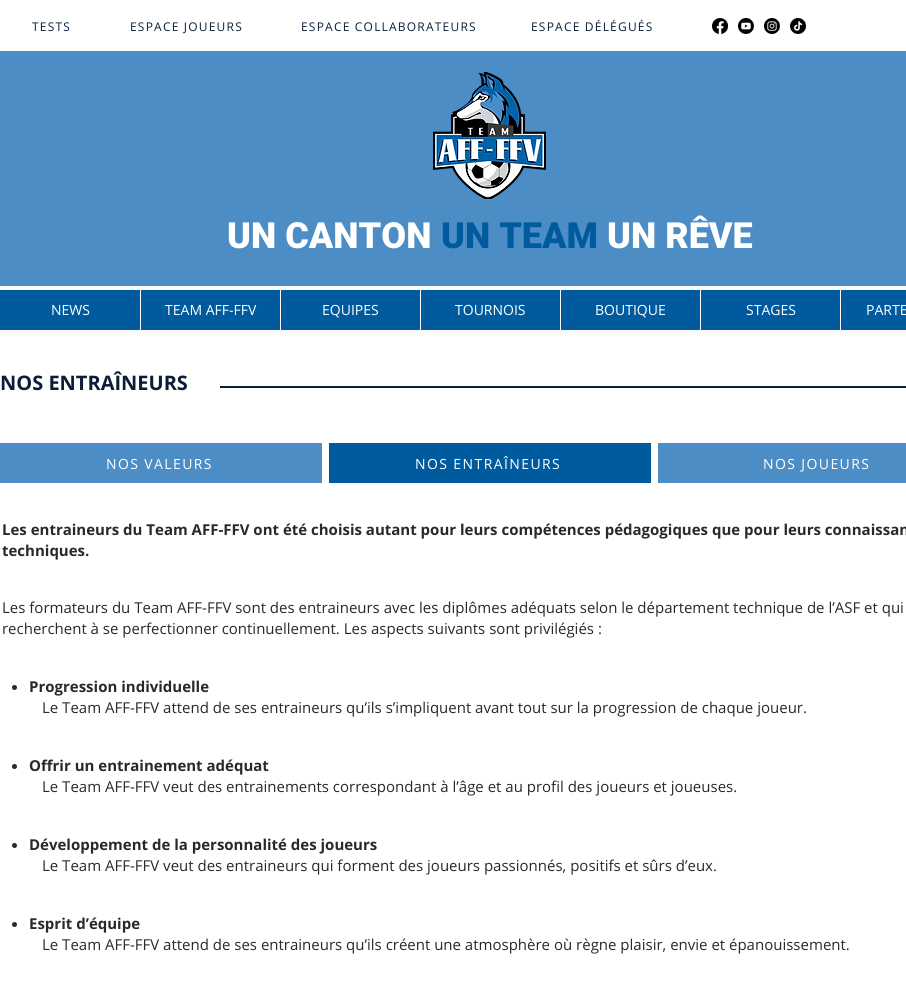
#include <cairo.h>
#include <math.h>
#include <stddef.h>

typedef struct { double x, y; const char *s; } line_t;

static void ink(cairo_t *ctx, unsigned color) {
    cairo_set_source_rgb(ctx, (color >> 16) / 255.0, (color >> 8 & 255) / 255.0, (color & 255) / 255.0);
}

static void write_spaced(cairo_t *ctx, double x, double y, const char *s, double letter, double word) {
    cairo_move_to(ctx, x, y);
    while (*s) {
        char ch[5] = {0};
        int n = 0;
        do ch[n++] = *s++; while ((*s & 0xC0) == 0x80);
        cairo_show_text(ctx, ch);
        cairo_rel_move_to(ctx, letter + word * (*ch == ' '), 0);
    }
}

static void paste(cairo_t *ctx, const char *path, double x, double y, double w, double h) {
    cairo_surface_t *image = cairo_image_surface_create_from_png(path);
    cairo_save(ctx);
    cairo_set_source_surface(ctx, image, x, y);
    cairo_rectangle(ctx, x, y, w, h);
    cairo_fill(ctx);
    cairo_restore(ctx);
    cairo_surface_destroy(image);
}

int main(void) {
    cairo_surface_t *surface = cairo_image_surface_create(CAIRO_FORMAT_RGB24, 906, 999);
    cairo_t *ctx = cairo_create(surface);
    cairo_font_options_t *options = cairo_font_options_create();
    cairo_font_options_set_hint_metrics(options, CAIRO_HINT_METRICS_OFF);
    cairo_font_options_set_hint_style(options, CAIRO_HINT_STYLE_NONE);
    cairo_set_font_options(ctx, options);
    cairo_set_miter_limit(ctx, 4);
    ink(ctx, 0xFFFFFF);
    cairo_paint(ctx);
    cairo_select_font_face(ctx, "Open Sans", CAIRO_FONT_SLANT_NORMAL, CAIRO_FONT_WEIGHT_NORMAL);
    cairo_set_font_size(ctx, 12);
    ink(ctx, 0x0B1E38);
    {
        static const line_t items[] = {
            {32, 31, "TESTS"},
            {130, 31, "ESPACE JOUEURS"},
            {301, 31, "ESPACE COLLABORATEURS"},
            {531, 31, "ESPACE DÉLÉGUÉS"},
        };
        for (size_t i = 0; i < sizeof items / sizeof *items; i++) {
            write_spaced(ctx, items[i].x, items[i].y, items[i].s, 1.2, 0);
        }
    }
    paste(ctx, "media/1.png", 712, 18, 16, 16);
    paste(ctx, "media/2.png", 738, 18, 16, 16);
    paste(ctx, "media/3.png", 764, 18, 16, 16);
    paste(ctx, "media/4.png", 790, 18, 16, 16);
    ink(ctx, 0x4D8DC6);
    cairo_rectangle(ctx, 0, 51, 906, 235);
    cairo_fill(ctx);
    paste(ctx, "media/5.png", 433, 72, 113, 127);
    cairo_select_font_face(ctx, "Roboto Black", CAIRO_FONT_SLANT_NORMAL, CAIRO_FONT_WEIGHT_NORMAL);
    cairo_set_font_size(ctx, 36);
    ink(ctx, 0xFFFFFF);
    cairo_move_to(ctx, 227, 248);
    cairo_show_text(ctx, "UN CANTON");
    ink(ctx, 0x005A9E);
    cairo_move_to(ctx, 441, 248);
    cairo_show_text(ctx, "UN TEAM");
    ink(ctx, 0xFFFFFF);
    cairo_move_to(ctx, 607, 248);
    cairo_show_text(ctx, "UN RÊVE");
    ink(ctx, 0xFAFAFA);
    cairo_rectangle(ctx, 0, 286, 906, 49);
    cairo_fill(ctx);
    ink(ctx, 0x005A9E);
    cairo_rectangle(ctx, 0, 290, 906, 40);
    cairo_fill(ctx);
    cairo_select_font_face(ctx, "Open Sans", CAIRO_FONT_SLANT_NORMAL, CAIRO_FONT_WEIGHT_NORMAL);
    cairo_set_font_size(ctx, 14);
    ink(ctx, 0xFFFFFF);
    cairo_move_to(ctx, 51, 315);
    cairo_show_text(ctx, "NEWS");
    cairo_rectangle(ctx, 140, 290, 1, 40);
    cairo_fill(ctx);
    cairo_move_to(ctx, 165, 315);
    cairo_show_text(ctx, "TEAM AFF-FFV");
    cairo_rectangle(ctx, 280, 290, 1, 40);
    cairo_fill(ctx);
    cairo_move_to(ctx, 322, 315);
    cairo_show_text(ctx, "EQUIPES");
    cairo_rectangle(ctx, 420, 290, 1, 40);
    cairo_fill(ctx);
    cairo_move_to(ctx, 455, 315);
    cairo_show_text(ctx, "TOURNOIS");
    cairo_rectangle(ctx, 560, 290, 1, 40);
    cairo_fill(ctx);
    cairo_move_to(ctx, 595, 315);
    cairo_show_text(ctx, "BOUTIQUE");
    cairo_rectangle(ctx, 700, 290, 1, 40);
    cairo_fill(ctx);
    cairo_move_to(ctx, 746, 315);
    cairo_show_text(ctx, "STAGES");
    cairo_rectangle(ctx, 840, 290, 1, 40);
    cairo_fill(ctx);
    cairo_move_to(ctx, 866, 315);
    cairo_show_text(ctx, "PARTE");
    cairo_select_font_face(ctx, "Open Sans", CAIRO_FONT_SLANT_NORMAL, CAIRO_FONT_WEIGHT_BOLD);
    cairo_set_font_size(ctx, 20);
    ink(ctx, 0x0B1E38);
    cairo_move_to(ctx, 0, 390);
    cairo_show_text(ctx, "NOS ENTRAÎNEURS");
    cairo_rectangle(ctx, 220, 386, 686, 2);
    cairo_fill(ctx);
    ink(ctx, 0x4D8DC6);
    cairo_rectangle(ctx, 0, 443, 322, 40);
    cairo_fill(ctx);
    cairo_select_font_face(ctx, "Open Sans", CAIRO_FONT_SLANT_NORMAL, CAIRO_FONT_WEIGHT_NORMAL);
    cairo_set_font_size(ctx, 14);
    ink(ctx, 0xFFFFFF);
    write_spaced(ctx, 106, 469, "NOS VALEURS", 1.4, 0);
    ink(ctx, 0x005A9E);
    cairo_rectangle(ctx, 329, 443, 322, 40);
    cairo_fill(ctx);
    ink(ctx, 0xFFFFFF);
    write_spaced(ctx, 415, 469, "NOS ENTRAÎNEURS", 1.4, 0);
    ink(ctx, 0x4D8DC6);
    cairo_rectangle(ctx, 658, 443, 248, 40);
    cairo_fill(ctx);
    ink(ctx, 0xFFFFFF);
    write_spaced(ctx, 763, 469, "NOS JOUEURS", 1.4, 0);
    cairo_select_font_face(ctx, "Open Sans", CAIRO_FONT_SLANT_NORMAL, CAIRO_FONT_WEIGHT_BOLD);
    cairo_set_font_size(ctx, 15);
    ink(ctx, 0x292929);
    cairo_move_to(ctx, 2, 535);
    cairo_show_text(ctx, "Les entraineurs du Team AFF-FFV ont été choisis autant pour leurs compétences pédagogiques que pour leurs connaissan");
    cairo_move_to(ctx, 2, 556);
    cairo_show_text(ctx, "techniques.");
    cairo_select_font_face(ctx, "Open Sans", CAIRO_FONT_SLANT_NORMAL, CAIRO_FONT_WEIGHT_NORMAL);
    cairo_move_to(ctx, 2, 613);
    cairo_show_text(ctx, "Les formateurs du Team AFF-FFV sont des entraineurs avec les diplômes adéquats selon le département technique de l’ASF et qui");
    cairo_move_to(ctx, 2, 634);
    cairo_show_text(ctx, "recherchent à se perfectionner continuellement. Les aspects suivants sont privilégiés :");
    cairo_new_path(ctx);
    cairo_arc(ctx, 14.5, 687.5, 2.5, 0, 2 * M_PI);
    cairo_fill(ctx);
    cairo_select_font_face(ctx, "Open Sans", CAIRO_FONT_SLANT_NORMAL, CAIRO_FONT_WEIGHT_BOLD);
    cairo_move_to(ctx, 29, 692);
    cairo_show_text(ctx, "Progression individuelle");
    cairo_select_font_face(ctx, "Open Sans", CAIRO_FONT_SLANT_NORMAL, CAIRO_FONT_WEIGHT_NORMAL);
    cairo_move_to(ctx, 42, 713);
    cairo_show_text(ctx, "Le Team AFF-FFV attend de ses entraineurs qu’ils s’impliquent avant tout sur la progression de chaque joueur.");
    cairo_new_path(ctx);
    cairo_arc(ctx, 14.5, 766.5, 2.5, 0, 2 * M_PI);
    cairo_fill(ctx);
    cairo_select_font_face(ctx, "Open Sans", CAIRO_FONT_SLANT_NORMAL, CAIRO_FONT_WEIGHT_BOLD);
    cairo_move_to(ctx, 29, 771);
    cairo_show_text(ctx, "Offrir un entrainement adéquat");
    cairo_select_font_face(ctx, "Open Sans", CAIRO_FONT_SLANT_NORMAL, CAIRO_FONT_WEIGHT_NORMAL);
    cairo_move_to(ctx, 42, 792);
    cairo_show_text(ctx, "Le Team AFF-FFV veut des entrainements correspondant à l’âge et au profil des joueurs et joueuses.");
    cairo_new_path(ctx);
    cairo_arc(ctx, 14.5, 845.5, 2.5, 0, 2 * M_PI);
    cairo_fill(ctx);
    cairo_select_font_face(ctx, "Open Sans", CAIRO_FONT_SLANT_NORMAL, CAIRO_FONT_WEIGHT_BOLD);
    cairo_move_to(ctx, 29, 850);
    cairo_show_text(ctx, "Développement de la personnalité des joueurs");
    cairo_select_font_face(ctx, "Open Sans", CAIRO_FONT_SLANT_NORMAL, CAIRO_FONT_WEIGHT_NORMAL);
    cairo_move_to(ctx, 42, 871);
    cairo_show_text(ctx, "Le Team AFF-FFV veut des entraineurs qui forment des joueurs passionnés, positifs et sûrs d’eux.");
    cairo_new_path(ctx);
    cairo_arc(ctx, 14.5, 924.5, 2.5, 0, 2 * M_PI);
    cairo_fill(ctx);
    cairo_select_font_face(ctx, "Open Sans", CAIRO_FONT_SLANT_NORMAL, CAIRO_FONT_WEIGHT_BOLD);
    cairo_move_to(ctx, 29, 929);
    cairo_show_text(ctx, "Esprit d’équipe");
    cairo_select_font_face(ctx, "Open Sans", CAIRO_FONT_SLANT_NORMAL, CAIRO_FONT_WEIGHT_NORMAL);
    cairo_move_to(ctx, 42, 950);
    cairo_show_text(ctx, "Le Team AFF-FFV attend de ses entraineurs qu’ils créent une atmosphère où règne plaisir, envie et épanouissement.");
    cairo_surface_write_to_png(surface, "image.png");
    cairo_font_options_destroy(options);
    cairo_destroy(ctx);
    cairo_surface_destroy(surface);
    return 0;
}
